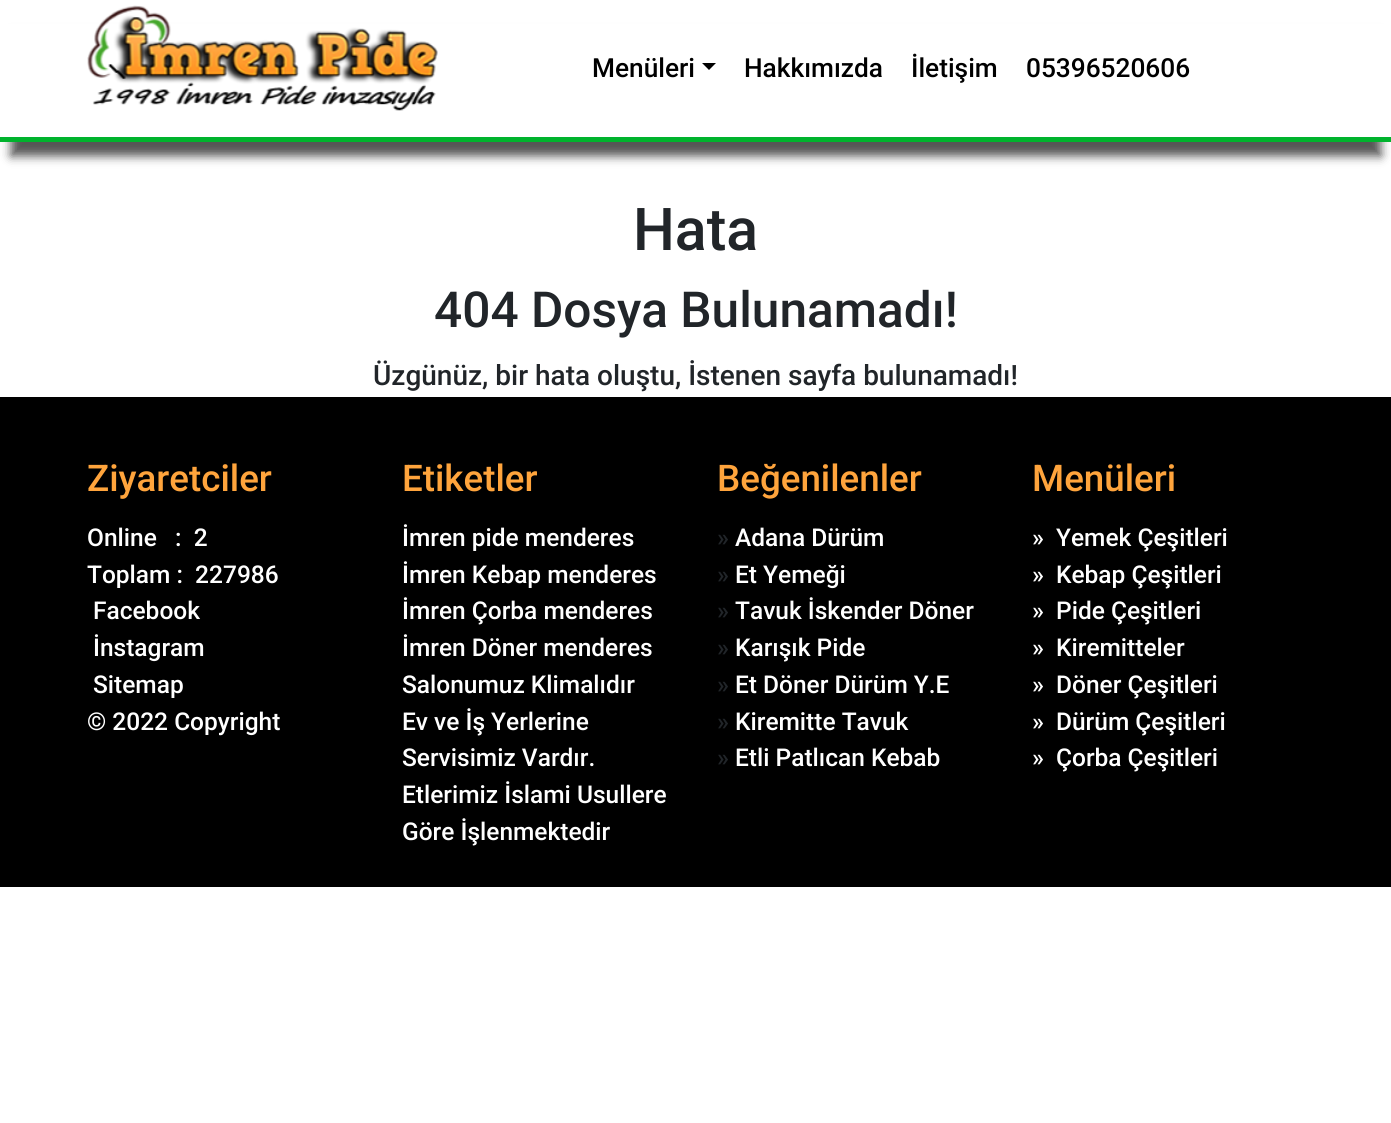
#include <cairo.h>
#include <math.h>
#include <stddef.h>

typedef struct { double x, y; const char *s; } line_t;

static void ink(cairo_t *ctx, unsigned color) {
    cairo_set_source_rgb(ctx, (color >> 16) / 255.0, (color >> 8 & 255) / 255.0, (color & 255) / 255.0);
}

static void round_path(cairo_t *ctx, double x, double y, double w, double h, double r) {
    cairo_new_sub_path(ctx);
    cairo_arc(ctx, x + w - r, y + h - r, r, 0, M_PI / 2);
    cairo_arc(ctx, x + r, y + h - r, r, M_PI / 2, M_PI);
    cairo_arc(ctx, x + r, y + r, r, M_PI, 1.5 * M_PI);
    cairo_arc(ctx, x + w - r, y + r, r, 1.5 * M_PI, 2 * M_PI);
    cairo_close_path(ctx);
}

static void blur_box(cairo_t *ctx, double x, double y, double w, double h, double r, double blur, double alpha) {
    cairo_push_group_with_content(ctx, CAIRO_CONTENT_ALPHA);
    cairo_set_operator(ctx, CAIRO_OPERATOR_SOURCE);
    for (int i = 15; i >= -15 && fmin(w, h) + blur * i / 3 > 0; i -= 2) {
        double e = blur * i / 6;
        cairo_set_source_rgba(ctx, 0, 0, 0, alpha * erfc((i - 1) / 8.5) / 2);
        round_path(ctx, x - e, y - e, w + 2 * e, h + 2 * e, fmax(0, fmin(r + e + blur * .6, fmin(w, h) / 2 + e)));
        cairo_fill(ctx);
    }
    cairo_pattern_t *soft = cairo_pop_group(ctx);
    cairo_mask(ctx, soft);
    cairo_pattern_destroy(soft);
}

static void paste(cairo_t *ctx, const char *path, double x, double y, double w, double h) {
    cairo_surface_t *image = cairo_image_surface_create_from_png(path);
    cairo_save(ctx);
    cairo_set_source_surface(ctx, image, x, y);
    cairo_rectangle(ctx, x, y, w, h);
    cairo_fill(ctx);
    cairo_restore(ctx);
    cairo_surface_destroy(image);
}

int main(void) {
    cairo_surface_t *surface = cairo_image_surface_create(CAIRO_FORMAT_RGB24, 1391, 1123);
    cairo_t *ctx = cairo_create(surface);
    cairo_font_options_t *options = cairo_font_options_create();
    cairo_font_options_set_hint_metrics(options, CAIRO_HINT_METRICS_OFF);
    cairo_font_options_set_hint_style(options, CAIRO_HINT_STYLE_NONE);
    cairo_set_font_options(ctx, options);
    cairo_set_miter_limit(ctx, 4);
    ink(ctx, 0xFFFFFF);
    cairo_paint(ctx);
    ink(ctx, 0x555555);
    blur_box(ctx, 11, 35, 1370, 121, 0, 5, 1);
    ink(ctx, 0xFFFFFF);
    cairo_rectangle(ctx, 0, 24, 1391, 113);
    cairo_fill(ctx);
    ink(ctx, 0x00B32D);
    cairo_rectangle(ctx, 0, 137, 1391, 5);
    cairo_fill(ctx);
    paste(ctx, "media/1.png", 87, 5, 351, 106);
    cairo_select_font_face(ctx, "Roboto Medium", CAIRO_FONT_SLANT_NORMAL, CAIRO_FONT_WEIGHT_NORMAL);
    cairo_set_font_size(ctx, 26.25);
    ink(ctx, 0x000000);
    cairo_move_to(ctx, 592, 77);
    cairo_show_text(ctx, "Menüleri");
    cairo_new_path(ctx);
    cairo_move_to(ctx, 702, 63);
    cairo_line_to(ctx, 716, 63);
    cairo_line_to(ctx, 709, 70);
    cairo_close_path(ctx);
    cairo_fill(ctx);
    {
        static const line_t items[] = {
            {744, 77, "Hakkımızda"},
            {911, 77, "İletişim"},
            {1026, 77, "05396520606"},
        };
        for (size_t i = 0; i < sizeof items / sizeof *items; i++) {
            cairo_move_to(ctx, items[i].x, items[i].y);
            cairo_show_text(ctx, items[i].s);
        }
    }
    cairo_set_font_size(ctx, 59);
    ink(ctx, 0x212529);
    cairo_move_to(ctx, 633, 250);
    cairo_show_text(ctx, "Hata");
    cairo_set_font_size(ctx, 49.6);
    cairo_move_to(ctx, 434, 327);
    cairo_show_text(ctx, "404 Dosya Bulunamadı!");
    cairo_set_font_size(ctx, 28);
    cairo_move_to(ctx, 373, 385);
    cairo_show_text(ctx, "Üzgünüz, bir hata oluştu, İstenen sayfa bulunamadı!");
    ink(ctx, 0x000000);
    cairo_rectangle(ctx, 0, 397, 1391, 490);
    cairo_fill(ctx);
    cairo_set_font_size(ctx, 36.75);
    ink(ctx, 0xFFA43C);
    cairo_move_to(ctx, 87, 491);
    cairo_show_text(ctx, "Ziyaretciler");
    cairo_set_font_size(ctx, 24.5);
    ink(ctx, 0xFFFFFF);
    {
        static const line_t items[] = {
            {87, 546, "Online   :  2"},
            {87, 583, "Toplam :  227986"},
            {93, 619, "Facebook"},
            {93, 656, "İnstagram"},
            {93, 693, "Sitemap"},
            {87, 730, "© 2022 Copyright"},
        };
        for (size_t i = 0; i < sizeof items / sizeof *items; i++) {
            cairo_move_to(ctx, items[i].x, items[i].y);
            cairo_show_text(ctx, items[i].s);
        }
    }
    cairo_set_font_size(ctx, 36.75);
    ink(ctx, 0xFFA43C);
    cairo_move_to(ctx, 402, 491);
    cairo_show_text(ctx, "Etiketler");
    cairo_set_font_size(ctx, 24.5);
    ink(ctx, 0xFFFFFF);
    {
        static const line_t items[] = {
            {402, 546, "İmren pide menderes"},
            {402, 583, "İmren Kebap menderes"},
            {402, 619, "İmren Çorba menderes"},
            {402, 656, "İmren Döner menderes"},
            {402, 693, "Salonumuz Klimalıdır"},
            {402, 730, "Ev ve İş Yerlerine"},
            {402, 766, "Servisimiz Vardır."},
            {402, 803, "Etlerimiz İslami Usullere"},
            {402, 840, "Göre İşlenmektedir"},
        };
        for (size_t i = 0; i < sizeof items / sizeof *items; i++) {
            cairo_move_to(ctx, items[i].x, items[i].y);
            cairo_show_text(ctx, items[i].s);
        }
    }
    cairo_set_font_size(ctx, 36.75);
    ink(ctx, 0xFFA43C);
    cairo_move_to(ctx, 717, 491);
    cairo_show_text(ctx, "Beğenilenler");
    cairo_set_font_size(ctx, 24.5);
    ink(ctx, 0x212529);
    cairo_move_to(ctx, 717, 546);
    cairo_show_text(ctx, "»");
    ink(ctx, 0xFFFFFF);
    cairo_move_to(ctx, 735, 546);
    cairo_show_text(ctx, "Adana Dürüm");
    ink(ctx, 0x212529);
    cairo_move_to(ctx, 717, 583);
    cairo_show_text(ctx, "»");
    ink(ctx, 0xFFFFFF);
    cairo_move_to(ctx, 735, 583);
    cairo_show_text(ctx, "Et Yemeği");
    ink(ctx, 0x212529);
    cairo_move_to(ctx, 717, 619);
    cairo_show_text(ctx, "»");
    ink(ctx, 0xFFFFFF);
    cairo_move_to(ctx, 735, 619);
    cairo_show_text(ctx, "Tavuk İskender Döner");
    ink(ctx, 0x212529);
    cairo_move_to(ctx, 717, 656);
    cairo_show_text(ctx, "»");
    ink(ctx, 0xFFFFFF);
    cairo_move_to(ctx, 735, 656);
    cairo_show_text(ctx, "Karışık Pide");
    ink(ctx, 0x212529);
    cairo_move_to(ctx, 717, 693);
    cairo_show_text(ctx, "»");
    ink(ctx, 0xFFFFFF);
    cairo_move_to(ctx, 735, 693);
    cairo_show_text(ctx, "Et Döner Dürüm Y.E");
    ink(ctx, 0x212529);
    cairo_move_to(ctx, 717, 730);
    cairo_show_text(ctx, "»");
    ink(ctx, 0xFFFFFF);
    cairo_move_to(ctx, 735, 730);
    cairo_show_text(ctx, "Kiremitte Tavuk");
    ink(ctx, 0x212529);
    cairo_move_to(ctx, 717, 766);
    cairo_show_text(ctx, "»");
    ink(ctx, 0xFFFFFF);
    cairo_move_to(ctx, 735, 766);
    cairo_show_text(ctx, "Etli Patlıcan Kebab");
    cairo_set_font_size(ctx, 36.75);
    ink(ctx, 0xFFA43C);
    cairo_move_to(ctx, 1032, 491);
    cairo_show_text(ctx, "Menüleri");
    cairo_set_font_size(ctx, 24.5);
    ink(ctx, 0xFFFFFF);
    {
        static const line_t items[] = {
            {1032, 546, "»"},
            {1056, 546, "Yemek Çeşitleri"},
            {1032, 583, "»"},
            {1056, 583, "Kebap Çeşitleri"},
            {1032, 619, "»"},
            {1056, 619, "Pide Çeşitleri"},
            {1032, 656, "»"},
            {1056, 656, "Kiremitteler"},
            {1032, 693, "»"},
            {1056, 693, "Döner Çeşitleri"},
            {1032, 730, "»"},
            {1056, 730, "Dürüm Çeşitleri"},
            {1032, 766, "»"},
            {1056, 766, "Çorba Çeşitleri"},
        };
        for (size_t i = 0; i < sizeof items / sizeof *items; i++) {
            cairo_move_to(ctx, items[i].x, items[i].y);
            cairo_show_text(ctx, items[i].s);
        }
    }
    cairo_surface_write_to_png(surface, "image.png");
    cairo_font_options_destroy(options);
    cairo_destroy(ctx);
    cairo_surface_destroy(surface);
    return 0;
}
